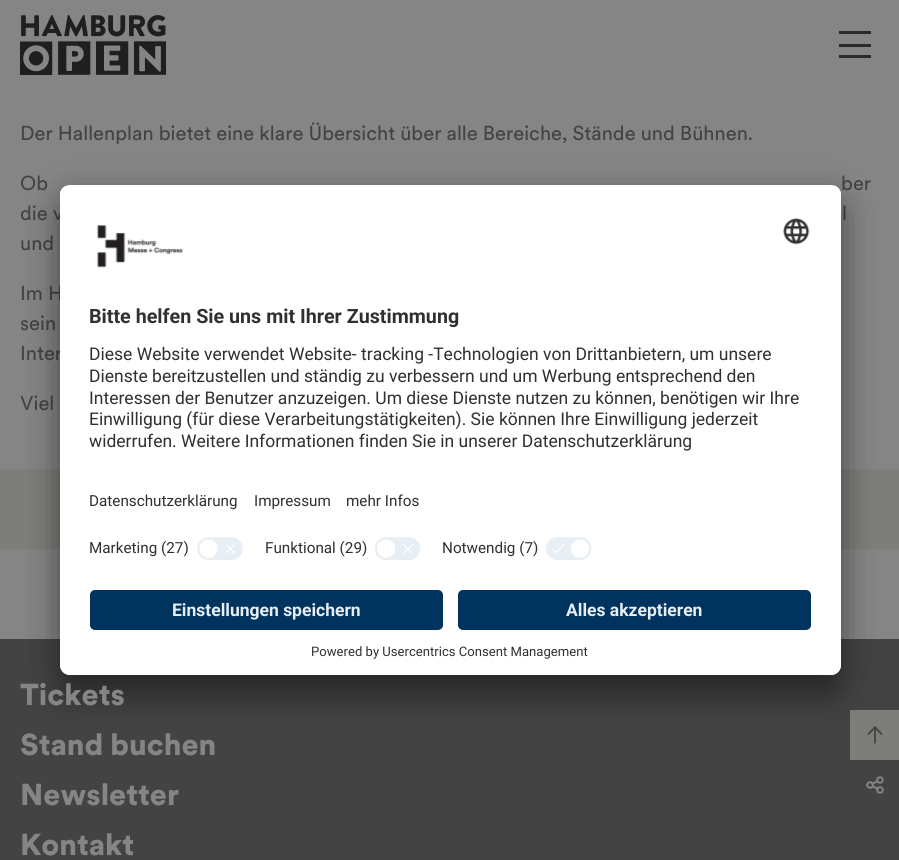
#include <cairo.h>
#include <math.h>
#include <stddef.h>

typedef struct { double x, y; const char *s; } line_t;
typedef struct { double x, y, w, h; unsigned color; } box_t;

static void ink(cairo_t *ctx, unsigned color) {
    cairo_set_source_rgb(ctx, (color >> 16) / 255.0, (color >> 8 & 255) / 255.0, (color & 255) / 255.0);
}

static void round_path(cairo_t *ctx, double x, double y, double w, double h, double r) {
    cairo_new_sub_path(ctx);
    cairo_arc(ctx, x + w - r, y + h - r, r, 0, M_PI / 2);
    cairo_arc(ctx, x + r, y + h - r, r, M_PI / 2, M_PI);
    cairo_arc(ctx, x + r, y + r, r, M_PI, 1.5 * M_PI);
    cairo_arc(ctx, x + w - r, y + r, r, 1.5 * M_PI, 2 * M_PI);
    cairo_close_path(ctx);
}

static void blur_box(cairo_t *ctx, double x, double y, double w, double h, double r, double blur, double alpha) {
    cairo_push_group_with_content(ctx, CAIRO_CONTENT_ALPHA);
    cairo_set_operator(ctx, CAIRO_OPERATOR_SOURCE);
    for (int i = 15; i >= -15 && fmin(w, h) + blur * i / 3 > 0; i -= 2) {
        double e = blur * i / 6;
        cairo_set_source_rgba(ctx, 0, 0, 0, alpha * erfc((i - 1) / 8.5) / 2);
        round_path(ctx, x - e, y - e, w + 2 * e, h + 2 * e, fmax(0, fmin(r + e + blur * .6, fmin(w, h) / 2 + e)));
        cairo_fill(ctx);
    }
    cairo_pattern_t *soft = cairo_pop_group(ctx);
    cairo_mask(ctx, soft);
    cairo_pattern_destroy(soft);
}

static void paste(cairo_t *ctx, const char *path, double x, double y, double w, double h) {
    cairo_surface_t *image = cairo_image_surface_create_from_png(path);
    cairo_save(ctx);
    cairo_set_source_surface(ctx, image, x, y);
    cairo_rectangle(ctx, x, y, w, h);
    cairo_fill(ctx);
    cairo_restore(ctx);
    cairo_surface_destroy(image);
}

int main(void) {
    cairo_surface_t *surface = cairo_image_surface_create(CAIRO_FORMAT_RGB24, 899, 860);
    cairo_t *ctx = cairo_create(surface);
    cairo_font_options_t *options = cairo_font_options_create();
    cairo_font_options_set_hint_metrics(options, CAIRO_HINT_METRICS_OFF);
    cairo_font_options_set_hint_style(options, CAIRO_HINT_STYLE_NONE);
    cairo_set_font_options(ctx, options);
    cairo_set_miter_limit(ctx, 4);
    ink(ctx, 0x858585);
    cairo_paint(ctx);
    paste(ctx, "media/1.png", 20, 15, 146, 60);
    {
        static const box_t items[] = {
            {839, 31, 32, 3, 0x292A2B},
            {839, 44, 32, 3, 0x292A2B},
            {839, 55, 32, 3, 0x292A2B},
        };
        for (size_t i = 0; i < sizeof items / sizeof *items; i++) {
            ink(ctx, items[i].color);
            cairo_rectangle(ctx, items[i].x, items[i].y, items[i].w, items[i].h);
            cairo_fill(ctx);
        }
    }
    cairo_select_font_face(ctx, "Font", CAIRO_FONT_SLANT_NORMAL, CAIRO_FONT_WEIGHT_NORMAL);
    cairo_set_font_size(ctx, 20);
    ink(ctx, 0x434343);
    {
        static const line_t items[] = {
            {20, 140, "Der Hallenplan bietet eine klare Übersicht über alle Bereiche, Stände und Bühnen."},
            {20, 190, "Ob"},
            {841, 190, "ber"},
            {20, 220, "die v"},
            {842, 220, "l"},
            {20, 250, "und"},
            {20, 300, "Im H"},
            {20, 330, "sein"},
            {20, 360, "Inter"},
            {20, 410, "Viel"},
        };
        for (size_t i = 0; i < sizeof items / sizeof *items; i++) {
            cairo_move_to(ctx, items[i].x, items[i].y);
            cairo_show_text(ctx, items[i].s);
        }
    }
    {
        static const box_t items[] = {
            {0, 469, 899, 80, 0x7D7D79},
            {0, 639, 899, 221, 0x434343},
            {850, 710, 49, 50, 0x7D7D79},
        };
        for (size_t i = 0; i < sizeof items / sizeof *items; i++) {
            ink(ctx, items[i].color);
            cairo_rectangle(ctx, items[i].x, items[i].y, items[i].w, items[i].h);
            cairo_fill(ctx);
        }
    }
    paste(ctx, "media/7.png", 867, 726, 16, 18);
    ink(ctx, 0x000000);
    blur_box(ctx, 60, 210, 781, 490, 10, 17.5, 0.3);
    blur_box(ctx, 60, 191, 781, 490, 10, 16, 0.22);
    ink(ctx, 0xFFFFFF);
    round_path(ctx, 60, 185, 781, 490, 10);
    cairo_fill(ctx);
    cairo_save(ctx);
    round_path(ctx, 60, 185, 781, 490, 10);
    cairo_clip(ctx);
    cairo_new_path(ctx);
    cairo_move_to(ctx, 70, 185);
    cairo_line_to(ctx, 831, 185);
    cairo_curve_to(ctx, 836.5, 185, 841, 189.5, 841, 195);
    cairo_line_to(ctx, 841, 580);
    cairo_line_to(ctx, 60, 580);
    cairo_line_to(ctx, 60, 195);
    cairo_curve_to(ctx, 60, 189.5, 64.5, 185, 70, 185);
    cairo_close_path(ctx);
    cairo_clip(ctx);
    cairo_rectangle(ctx, 60, 186, 781, 394);
    cairo_fill(ctx);
    cairo_rectangle(ctx, 60, 186, 781, 344);
    cairo_fill(ctx);
    cairo_restore(ctx);
    paste(ctx, "media/2.png", 96, 225, 87, 43);
    paste(ctx, "media/3.png", 783, 218, 27, 27);
    cairo_select_font_face(ctx, "Roboto", CAIRO_FONT_SLANT_NORMAL, CAIRO_FONT_WEIGHT_BOLD);
    cairo_set_font_size(ctx, 19.7);
    ink(ctx, 0x303030);
    cairo_move_to(ctx, 89, 323);
    cairo_show_text(ctx, "Bitte helfen Sie uns mit Ihrer Zustimmung");
    cairo_select_font_face(ctx, "Roboto", CAIRO_FONT_SLANT_NORMAL, CAIRO_FONT_WEIGHT_NORMAL);
    cairo_set_font_size(ctx, 17.5);
    {
        static const line_t items[] = {
            {89, 360, "Diese Website verwendet Website- tracking -Technologien von Drittanbietern, um unsere"},
            {89, 382, "Dienste bereitzustellen und ständig zu verbessern und um Werbung entsprechend den"},
            {89, 404, "Interessen der Benutzer anzuzeigen. Um diese Dienste nutzen zu können, benötigen wir Ihre"},
            {89, 425, "Einwilligung (für diese Verarbeitungstätigkeiten). Sie können Ihre Einwilligung jederzeit"},
            {89, 447, "widerrufen. Weitere Informationen finden Sie in unserer Datenschutzerklärung"},
        };
        for (size_t i = 0; i < sizeof items / sizeof *items; i++) {
            cairo_move_to(ctx, items[i].x, items[i].y);
            cairo_show_text(ctx, items[i].s);
        }
    }
    cairo_set_font_size(ctx, 15.25);
    {
        static const line_t items[] = {
            {89, 506, "Datenschutzerklärung"},
            {254, 506, "Impressum"},
            {346, 506, "mehr Infos"},
            {89, 553, "Marketing (27)"},
        };
        for (size_t i = 0; i < sizeof items / sizeof *items; i++) {
            cairo_move_to(ctx, items[i].x, items[i].y);
            cairo_show_text(ctx, items[i].s);
        }
    }
    paste(ctx, "media/4.png", 197, 537, 46, 23);
    cairo_move_to(ctx, 265, 553);
    cairo_show_text(ctx, "Funktional (29)");
    paste(ctx, "media/5.png", 374, 537, 47, 23);
    cairo_move_to(ctx, 442, 553);
    cairo_show_text(ctx, "Notwendig (7)");
    paste(ctx, "media/6.png", 546, 537, 46, 23);
    ink(ctx, 0xFFFFFF);
    cairo_new_path(ctx);
    cairo_move_to(ctx, 60, 580);
    cairo_line_to(ctx, 841, 580);
    cairo_line_to(ctx, 841, 665);
    cairo_curve_to(ctx, 841, 670.5, 836.5, 675, 831, 675);
    cairo_line_to(ctx, 70, 675);
    cairo_curve_to(ctx, 64.5, 675, 60, 670.5, 60, 665);
    cairo_close_path(ctx);
    cairo_fill(ctx);
    ink(ctx, 0x00335D);
    round_path(ctx, 90, 590, 353, 40, 5);
    cairo_fill(ctx);
    cairo_select_font_face(ctx, "Roboto", CAIRO_FONT_SLANT_NORMAL, CAIRO_FONT_WEIGHT_BOLD);
    cairo_set_font_size(ctx, 17.5);
    ink(ctx, 0xE7EFF5);
    cairo_move_to(ctx, 172, 616);
    cairo_show_text(ctx, "Einstellungen speichern");
    ink(ctx, 0x00335D);
    round_path(ctx, 458, 590, 353, 40, 5);
    cairo_fill(ctx);
    ink(ctx, 0xE7EFF5);
    cairo_move_to(ctx, 566, 616);
    cairo_show_text(ctx, "Alles akzeptieren");
    cairo_select_font_face(ctx, "Roboto", CAIRO_FONT_SLANT_NORMAL, CAIRO_FONT_WEIGHT_NORMAL);
    cairo_set_font_size(ctx, 13.1);
    ink(ctx, 0x303030);
    cairo_move_to(ctx, 311, 656);
    cairo_show_text(ctx, "Powered by Usercentrics Consent Management");
    cairo_select_font_face(ctx, "Font Black", CAIRO_FONT_SLANT_NORMAL, CAIRO_FONT_WEIGHT_NORMAL);
    cairo_set_font_size(ctx, 30);
    ink(ctx, 0x858585);
    {
        static const line_t items[] = {
            {20, 705, "Tickets"},
            {20, 755, "Stand buchen"},
            {20, 805, "Newsletter"},
            {20, 855, "Kontakt"},
        };
        for (size_t i = 0; i < sizeof items / sizeof *items; i++) {
            cairo_move_to(ctx, items[i].x, items[i].y);
            cairo_show_text(ctx, items[i].s);
        }
    }
    paste(ctx, "media/8.png", 866, 776, 18, 18);
    cairo_surface_write_to_png(surface, "image.png");
    cairo_font_options_destroy(options);
    cairo_destroy(ctx);
    cairo_surface_destroy(surface);
    return 0;
}
